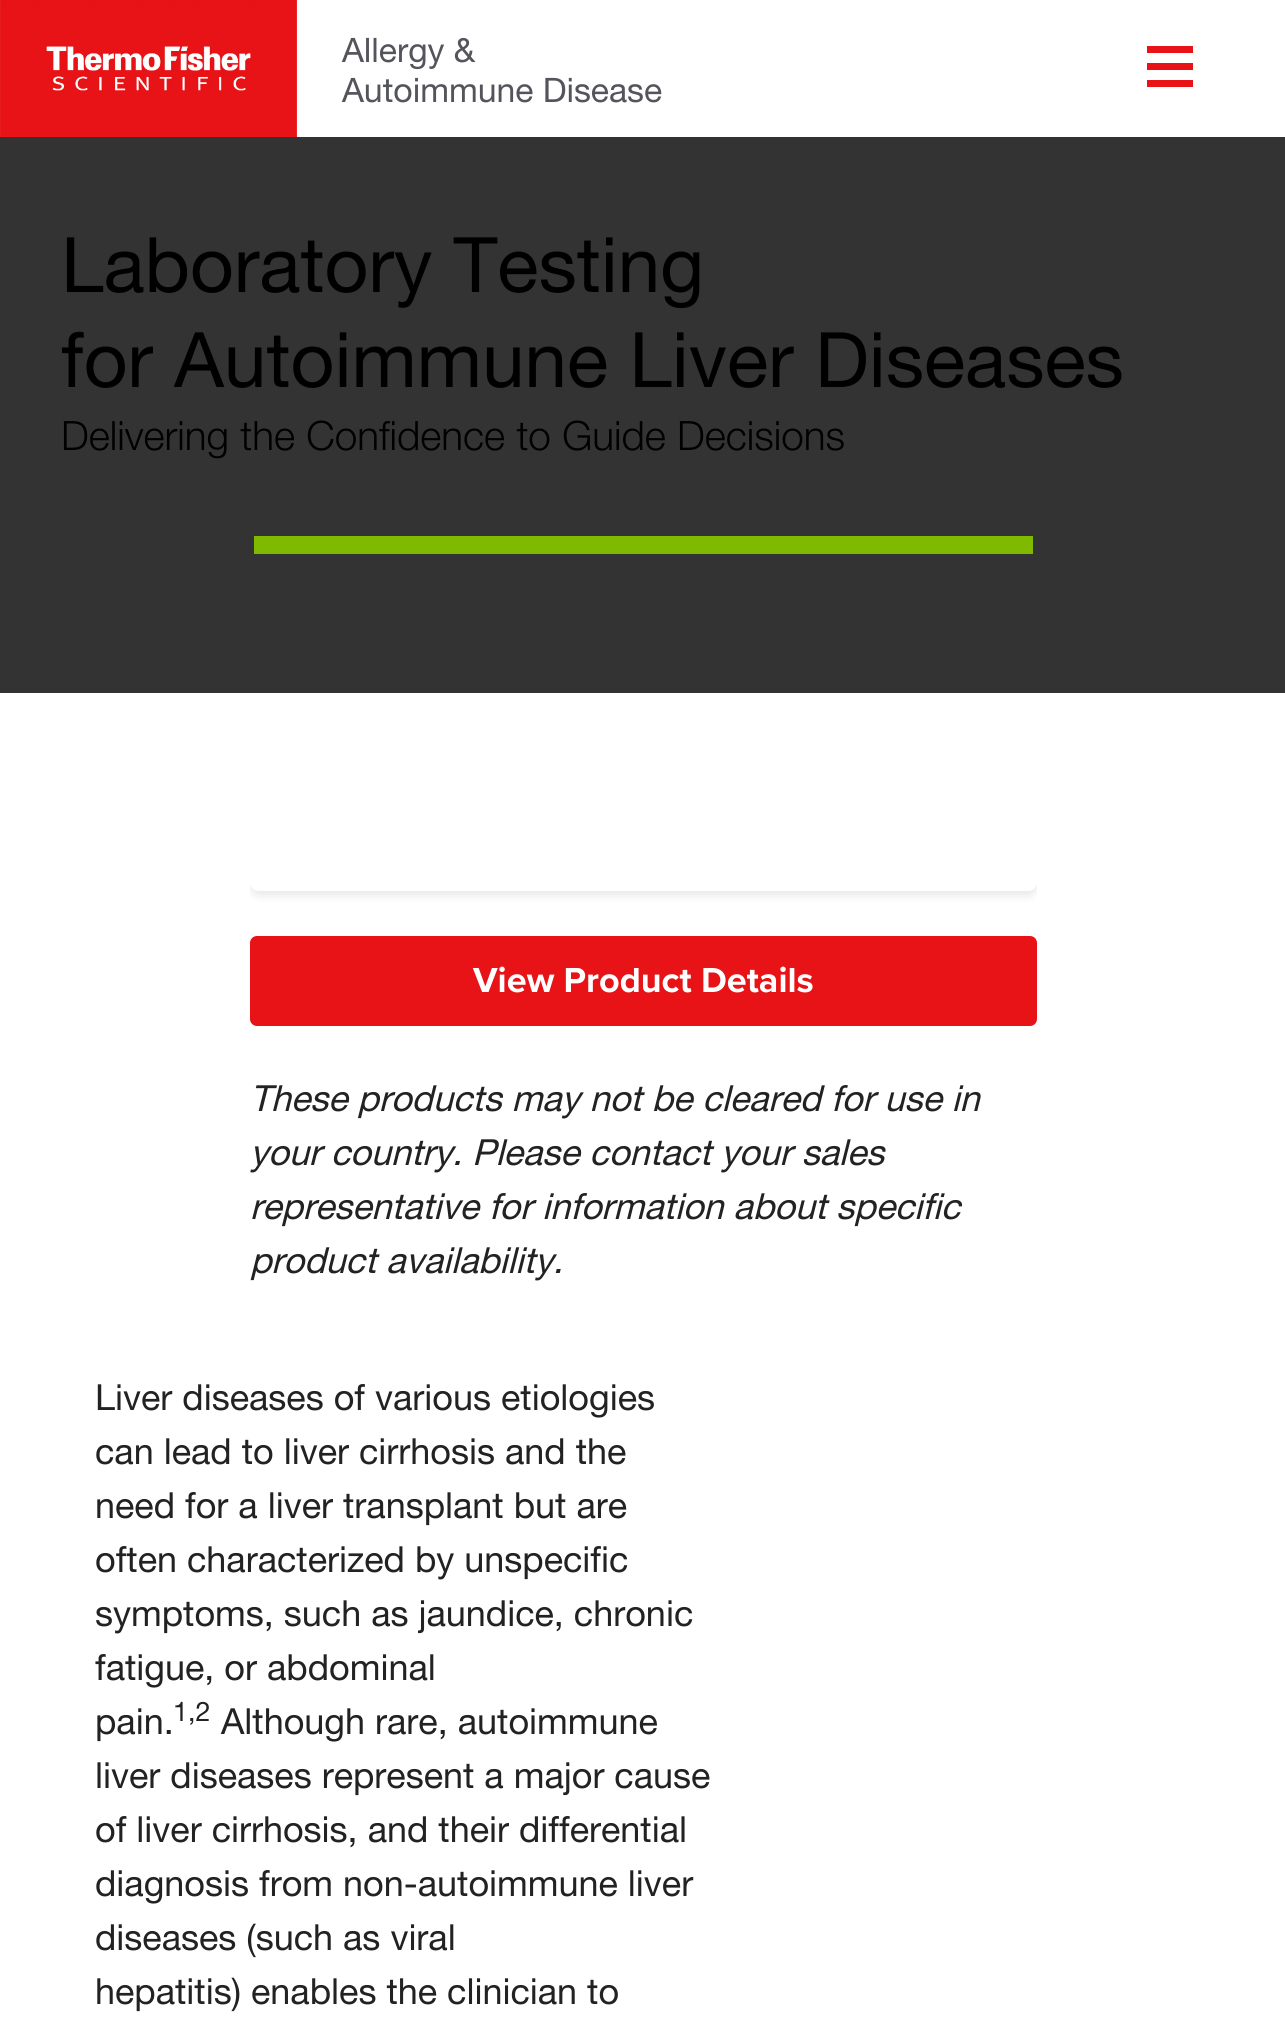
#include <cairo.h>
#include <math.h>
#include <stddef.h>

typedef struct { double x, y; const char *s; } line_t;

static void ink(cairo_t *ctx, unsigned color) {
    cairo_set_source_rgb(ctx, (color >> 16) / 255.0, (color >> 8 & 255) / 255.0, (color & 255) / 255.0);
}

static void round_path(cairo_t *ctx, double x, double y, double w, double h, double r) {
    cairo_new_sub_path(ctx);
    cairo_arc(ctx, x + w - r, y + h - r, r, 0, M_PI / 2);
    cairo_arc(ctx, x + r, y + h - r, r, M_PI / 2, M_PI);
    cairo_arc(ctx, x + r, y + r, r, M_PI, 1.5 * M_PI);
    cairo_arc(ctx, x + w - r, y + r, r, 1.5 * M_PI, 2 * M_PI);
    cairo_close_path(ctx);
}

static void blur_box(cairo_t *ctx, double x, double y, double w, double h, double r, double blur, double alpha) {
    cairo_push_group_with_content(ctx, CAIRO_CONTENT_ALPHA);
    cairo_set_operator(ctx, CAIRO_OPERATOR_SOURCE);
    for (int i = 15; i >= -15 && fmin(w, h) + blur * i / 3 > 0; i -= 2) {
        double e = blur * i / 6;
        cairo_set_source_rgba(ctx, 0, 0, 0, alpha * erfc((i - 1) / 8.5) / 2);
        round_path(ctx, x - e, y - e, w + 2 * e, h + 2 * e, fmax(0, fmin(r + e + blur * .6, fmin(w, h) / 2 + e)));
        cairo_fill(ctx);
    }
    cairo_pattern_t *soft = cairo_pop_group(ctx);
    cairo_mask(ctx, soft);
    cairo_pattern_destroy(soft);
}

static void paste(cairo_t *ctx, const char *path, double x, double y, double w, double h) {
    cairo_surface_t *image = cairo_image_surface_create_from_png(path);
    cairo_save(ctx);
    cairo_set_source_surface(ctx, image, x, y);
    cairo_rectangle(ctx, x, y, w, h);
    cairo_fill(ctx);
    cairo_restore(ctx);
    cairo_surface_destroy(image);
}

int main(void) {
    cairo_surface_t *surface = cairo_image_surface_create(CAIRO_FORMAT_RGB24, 1285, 2021);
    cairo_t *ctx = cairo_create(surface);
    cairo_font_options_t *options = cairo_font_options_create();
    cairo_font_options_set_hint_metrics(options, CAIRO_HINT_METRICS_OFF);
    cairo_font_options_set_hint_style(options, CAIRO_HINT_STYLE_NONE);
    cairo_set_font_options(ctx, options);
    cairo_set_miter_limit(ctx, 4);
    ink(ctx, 0xFFFFFF);
    cairo_paint(ctx);
    paste(ctx, "media/1.png", 0, 0, 297, 137);
    cairo_select_font_face(ctx, "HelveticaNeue", CAIRO_FONT_SLANT_NORMAL, CAIRO_FONT_WEIGHT_NORMAL);
    cairo_set_font_size(ctx, 33.75);
    ink(ctx, 0x54545C);
    cairo_move_to(ctx, 342, 62);
    cairo_show_text(ctx, "Allergy &");
    cairo_move_to(ctx, 342, 102);
    cairo_show_text(ctx, "Autoimmune Disease");
    ink(ctx, 0xE71316);
    cairo_new_path(ctx);
    cairo_move_to(ctx, 1193, 46);
    cairo_line_to(ctx, 1193, 53);
    cairo_line_to(ctx, 1147, 53);
    cairo_line_to(ctx, 1147, 46);
    cairo_close_path(ctx);
    cairo_move_to(ctx, 1147, 70);
    cairo_line_to(ctx, 1193, 70);
    cairo_line_to(ctx, 1193, 63);
    cairo_line_to(ctx, 1147, 63);
    cairo_close_path(ctx);
    cairo_move_to(ctx, 1147, 87);
    cairo_line_to(ctx, 1193, 87);
    cairo_line_to(ctx, 1193, 80);
    cairo_line_to(ctx, 1147, 80);
    cairo_close_path(ctx);
    cairo_fill(ctx);
    ink(ctx, 0x333333);
    cairo_rectangle(ctx, 0, 137, 1285, 556);
    cairo_fill(ctx);
    cairo_set_font_size(ctx, 76.5);
    ink(ctx, 0x000000);
    cairo_move_to(ctx, 61, 292);
    cairo_show_text(ctx, "Laboratory Testing");
    cairo_move_to(ctx, 61, 387);
    cairo_show_text(ctx, "for Autoimmune Liver Diseases");
    cairo_select_font_face(ctx, "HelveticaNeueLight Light", CAIRO_FONT_SLANT_NORMAL, CAIRO_FONT_WEIGHT_NORMAL);
    cairo_set_font_size(ctx, 40.5);
    cairo_move_to(ctx, 61, 450);
    cairo_show_text(ctx, "Delivering the Confidence to Guide Decisions");
    ink(ctx, 0x7FBA00);
    cairo_rectangle(ctx, 254, 536, 779, 18);
    cairo_fill(ctx);
    cairo_save(ctx);
    cairo_new_path(ctx);
    cairo_move_to(ctx, 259, 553.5);
    cairo_line_to(ctx, 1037, 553.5);
    cairo_line_to(ctx, 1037, 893);
    cairo_curve_to(ctx, 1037, 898, 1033, 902, 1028, 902);
    cairo_line_to(ctx, 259, 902);
    cairo_curve_to(ctx, 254, 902, 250, 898, 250, 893);
    cairo_line_to(ctx, 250, 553.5);
    cairo_close_path(ctx);
    cairo_clip(ctx);
    cairo_set_fill_rule(ctx, CAIRO_FILL_RULE_EVEN_ODD);
    cairo_new_path(ctx);
    cairo_move_to(ctx, 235, 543);
    cairo_line_to(ctx, 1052, 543);
    cairo_line_to(ctx, 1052, 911);
    cairo_line_to(ctx, 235, 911);
    cairo_close_path(ctx);
    cairo_move_to(ctx, 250, 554);
    cairo_line_to(ctx, 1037, 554);
    cairo_line_to(ctx, 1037, 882);
    cairo_curve_to(ctx, 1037, 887, 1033, 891, 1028, 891);
    cairo_line_to(ctx, 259, 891);
    cairo_curve_to(ctx, 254, 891, 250, 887, 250, 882);
    cairo_close_path(ctx);
    cairo_clip(ctx);
    ink(ctx, 0x222222);
    blur_box(ctx, 250, 558, 787, 338, 9, 4.5, 0.1);
    cairo_restore(ctx);
    ink(ctx, 0xE71316);
    round_path(ctx, 251, 937, 785, 88, 6);
    cairo_fill_preserve(ctx);
    cairo_stroke(ctx);
    cairo_select_font_face(ctx, "Proxima Nova", CAIRO_FONT_SLANT_NORMAL, CAIRO_FONT_WEIGHT_BOLD);
    cairo_set_font_size(ctx, 36);
    ink(ctx, 0xFFFFFF);
    cairo_move_to(ctx, 473, 992);
    cairo_show_text(ctx, "View Product Details");
    cairo_select_font_face(ctx, "HelveticaNeue", CAIRO_FONT_SLANT_ITALIC, CAIRO_FONT_WEIGHT_NORMAL);
    ink(ctx, 0x222222);
    {
        static const line_t items[] = {
            {250, 1111, "These products may not be cleared for use in"},
            {250, 1165, "your country. Please contact your sales"},
            {250, 1219, "representative for information about specific"},
            {250, 1273, "product availability."},
        };
        for (size_t i = 0; i < sizeof items / sizeof *items; i++) {
            cairo_move_to(ctx, items[i].x, items[i].y);
            cairo_show_text(ctx, items[i].s);
        }
    }
    cairo_select_font_face(ctx, "HelveticaNeue", CAIRO_FONT_SLANT_NORMAL, CAIRO_FONT_WEIGHT_NORMAL);
    {
        static const line_t items[] = {
            {95, 1410, "Liver diseases of various etiologies"},
            {95, 1464, "can lead to liver cirrhosis and the"},
            {95, 1518, "need for a liver transplant but are"},
            {95, 1572, "often characterized by unspecific"},
            {95, 1626, "symptoms, such as jaundice, chronic"},
            {95, 1680, "fatigue, or abdominal"},
            {95, 1734, "pain."},
        };
        for (size_t i = 0; i < sizeof items / sizeof *items; i++) {
            cairo_move_to(ctx, items[i].x, items[i].y);
            cairo_show_text(ctx, items[i].s);
        }
    }
    cairo_set_font_size(ctx, 27);
    cairo_move_to(ctx, 173, 1721);
    cairo_show_text(ctx, "1,2");
    cairo_set_font_size(ctx, 36);
    {
        static const line_t items[] = {
            {221, 1734, "Although rare, autoimmune"},
            {95, 1788, "liver diseases represent a major cause"},
            {95, 1842, "of liver cirrhosis, and their differential"},
            {95, 1896, "diagnosis from non-autoimmune liver"},
            {95, 1950, "diseases (such as viral"},
            {95, 2004, "hepatitis) enables the clinician to"},
        };
        for (size_t i = 0; i < sizeof items / sizeof *items; i++) {
            cairo_move_to(ctx, items[i].x, items[i].y);
            cairo_show_text(ctx, items[i].s);
        }
    }
    cairo_surface_write_to_png(surface, "image.png");
    cairo_font_options_destroy(options);
    cairo_destroy(ctx);
    cairo_surface_destroy(surface);
    return 0;
}
